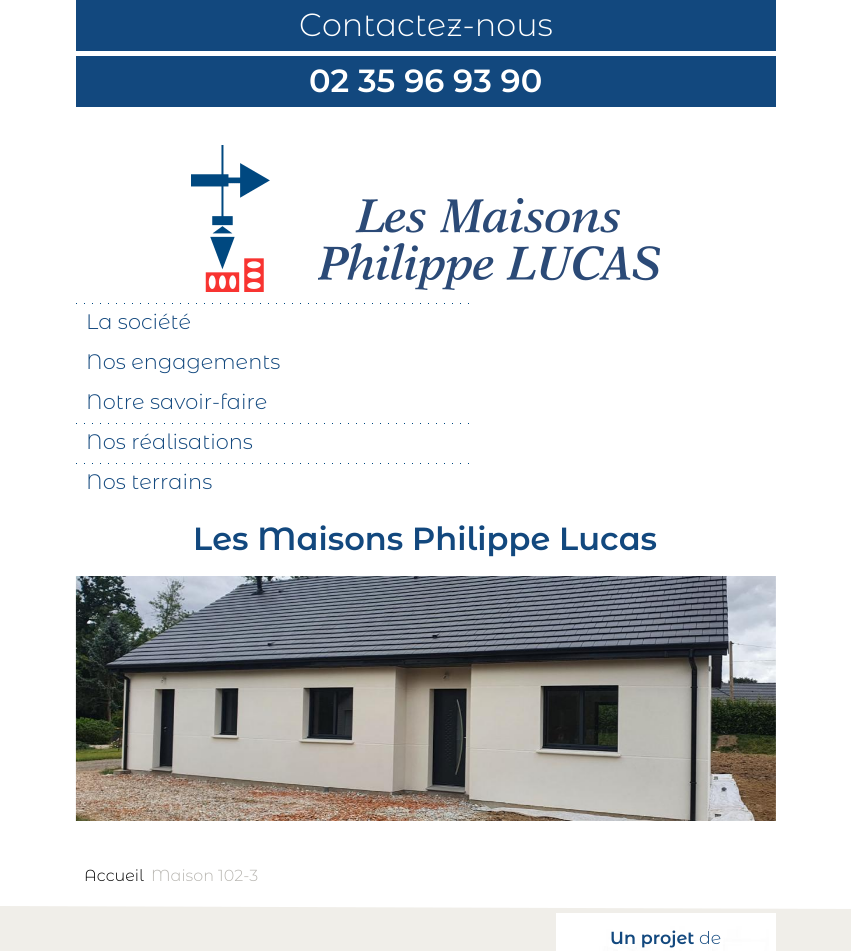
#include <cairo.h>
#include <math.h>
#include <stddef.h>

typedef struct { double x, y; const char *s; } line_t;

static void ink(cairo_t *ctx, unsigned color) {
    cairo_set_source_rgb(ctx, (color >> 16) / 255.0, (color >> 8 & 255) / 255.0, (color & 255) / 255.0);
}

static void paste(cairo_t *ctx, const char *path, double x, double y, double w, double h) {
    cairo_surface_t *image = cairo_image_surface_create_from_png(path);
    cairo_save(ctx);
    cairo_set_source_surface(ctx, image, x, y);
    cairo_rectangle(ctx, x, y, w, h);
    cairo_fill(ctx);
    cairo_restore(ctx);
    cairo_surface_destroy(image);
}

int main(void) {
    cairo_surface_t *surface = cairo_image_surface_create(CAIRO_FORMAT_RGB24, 851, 951);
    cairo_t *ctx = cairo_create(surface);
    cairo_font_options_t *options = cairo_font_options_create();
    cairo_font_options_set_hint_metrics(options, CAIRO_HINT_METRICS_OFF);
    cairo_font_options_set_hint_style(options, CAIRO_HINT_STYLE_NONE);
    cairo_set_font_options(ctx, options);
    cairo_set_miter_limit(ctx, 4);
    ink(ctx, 0xFFFFFF);
    cairo_paint(ctx);
    ink(ctx, 0x12487E);
    cairo_rectangle(ctx, 76, 0, 700, 51);
    cairo_fill(ctx);
    cairo_select_font_face(ctx, "Montserrat Alternates Light", CAIRO_FONT_SLANT_NORMAL, CAIRO_FONT_WEIGHT_NORMAL);
    cairo_set_font_size(ctx, 32);
    ink(ctx, 0xFFFFFF);
    cairo_move_to(ctx, 299, 36);
    cairo_show_text(ctx, "Contactez-nous");
    ink(ctx, 0x12487E);
    cairo_rectangle(ctx, 76, 56, 700, 51);
    cairo_fill(ctx);
    cairo_select_font_face(ctx, "Montserrat Alternates SemiBold", CAIRO_FONT_SLANT_NORMAL, CAIRO_FONT_WEIGHT_NORMAL);
    ink(ctx, 0xFFFFFF);
    cairo_move_to(ctx, 309, 92);
    cairo_show_text(ctx, "02 35 96 93 90");
    paste(ctx, "media/1.png", 191, 145, 469, 147);
    paste(ctx, "media/2.png", 76, 303, 393, 1);
    cairo_select_font_face(ctx, "Montserrat Alternates Light", CAIRO_FONT_SLANT_NORMAL, CAIRO_FONT_WEIGHT_NORMAL);
    cairo_set_font_size(ctx, 21);
    ink(ctx, 0x12487E);
    {
        static const line_t items[] = {
            {86, 329, "La société"},
            {86, 369, "Nos engagements"},
            {86, 409, "Notre savoir-faire"},
        };
        for (size_t i = 0; i < sizeof items / sizeof *items; i++) {
            cairo_move_to(ctx, items[i].x, items[i].y);
            cairo_show_text(ctx, items[i].s);
        }
    }
    paste(ctx, "media/2.png", 76, 423, 393, 1);
    cairo_move_to(ctx, 86, 449);
    cairo_show_text(ctx, "Nos réalisations");
    paste(ctx, "media/2.png", 76, 463, 393, 1);
    cairo_move_to(ctx, 86, 489);
    cairo_show_text(ctx, "Nos terrains");
    cairo_select_font_face(ctx, "Montserrat Alternates SemiBold", CAIRO_FONT_SLANT_NORMAL, CAIRO_FONT_WEIGHT_NORMAL);
    cairo_set_font_size(ctx, 32);
    cairo_move_to(ctx, 193, 550);
    cairo_show_text(ctx, "Les Maisons Philippe Lucas");
    paste(ctx, "media/3.png", 75, 576, 701, 245);
    ink(ctx, 0xF0EEE9);
    cairo_set_fill_rule(ctx, CAIRO_FILL_RULE_EVEN_ODD);
    cairo_new_path(ctx);
    cairo_move_to(ctx, -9, 906);
    cairo_line_to(ctx, 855, 909);
    cairo_line_to(ctx, 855, 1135);
    cairo_line_to(ctx, -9, 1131);
    cairo_close_path(ctx);
    cairo_fill(ctx);
    cairo_select_font_face(ctx, "Montserrat Alternates Light", CAIRO_FONT_SLANT_NORMAL, CAIRO_FONT_WEIGHT_NORMAL);
    cairo_set_font_size(ctx, 16);
    ink(ctx, 0x000000);
    cairo_move_to(ctx, 84, 881);
    cairo_show_text(ctx, "Accueil");
    ink(ctx, 0xB7B5B0);
    cairo_move_to(ctx, 151, 881);
    cairo_show_text(ctx, "Maison 102-3");
    paste(ctx, "media/4.png", 556, 913, 220, 38);
    cairo_select_font_face(ctx, "Montserrat Alternates SemiBold", CAIRO_FONT_SLANT_NORMAL, CAIRO_FONT_WEIGHT_NORMAL);
    cairo_set_font_size(ctx, 17.5);
    ink(ctx, 0x12487E);
    cairo_move_to(ctx, 610, 944);
    cairo_show_text(ctx, "Un projet");
    cairo_select_font_face(ctx, "Montserrat Alternates Light", CAIRO_FONT_SLANT_NORMAL, CAIRO_FONT_WEIGHT_NORMAL);
    cairo_move_to(ctx, 699, 944);
    cairo_show_text(ctx, "de");
    cairo_surface_write_to_png(surface, "image.png");
    cairo_font_options_destroy(options);
    cairo_destroy(ctx);
    cairo_surface_destroy(surface);
    return 0;
}
